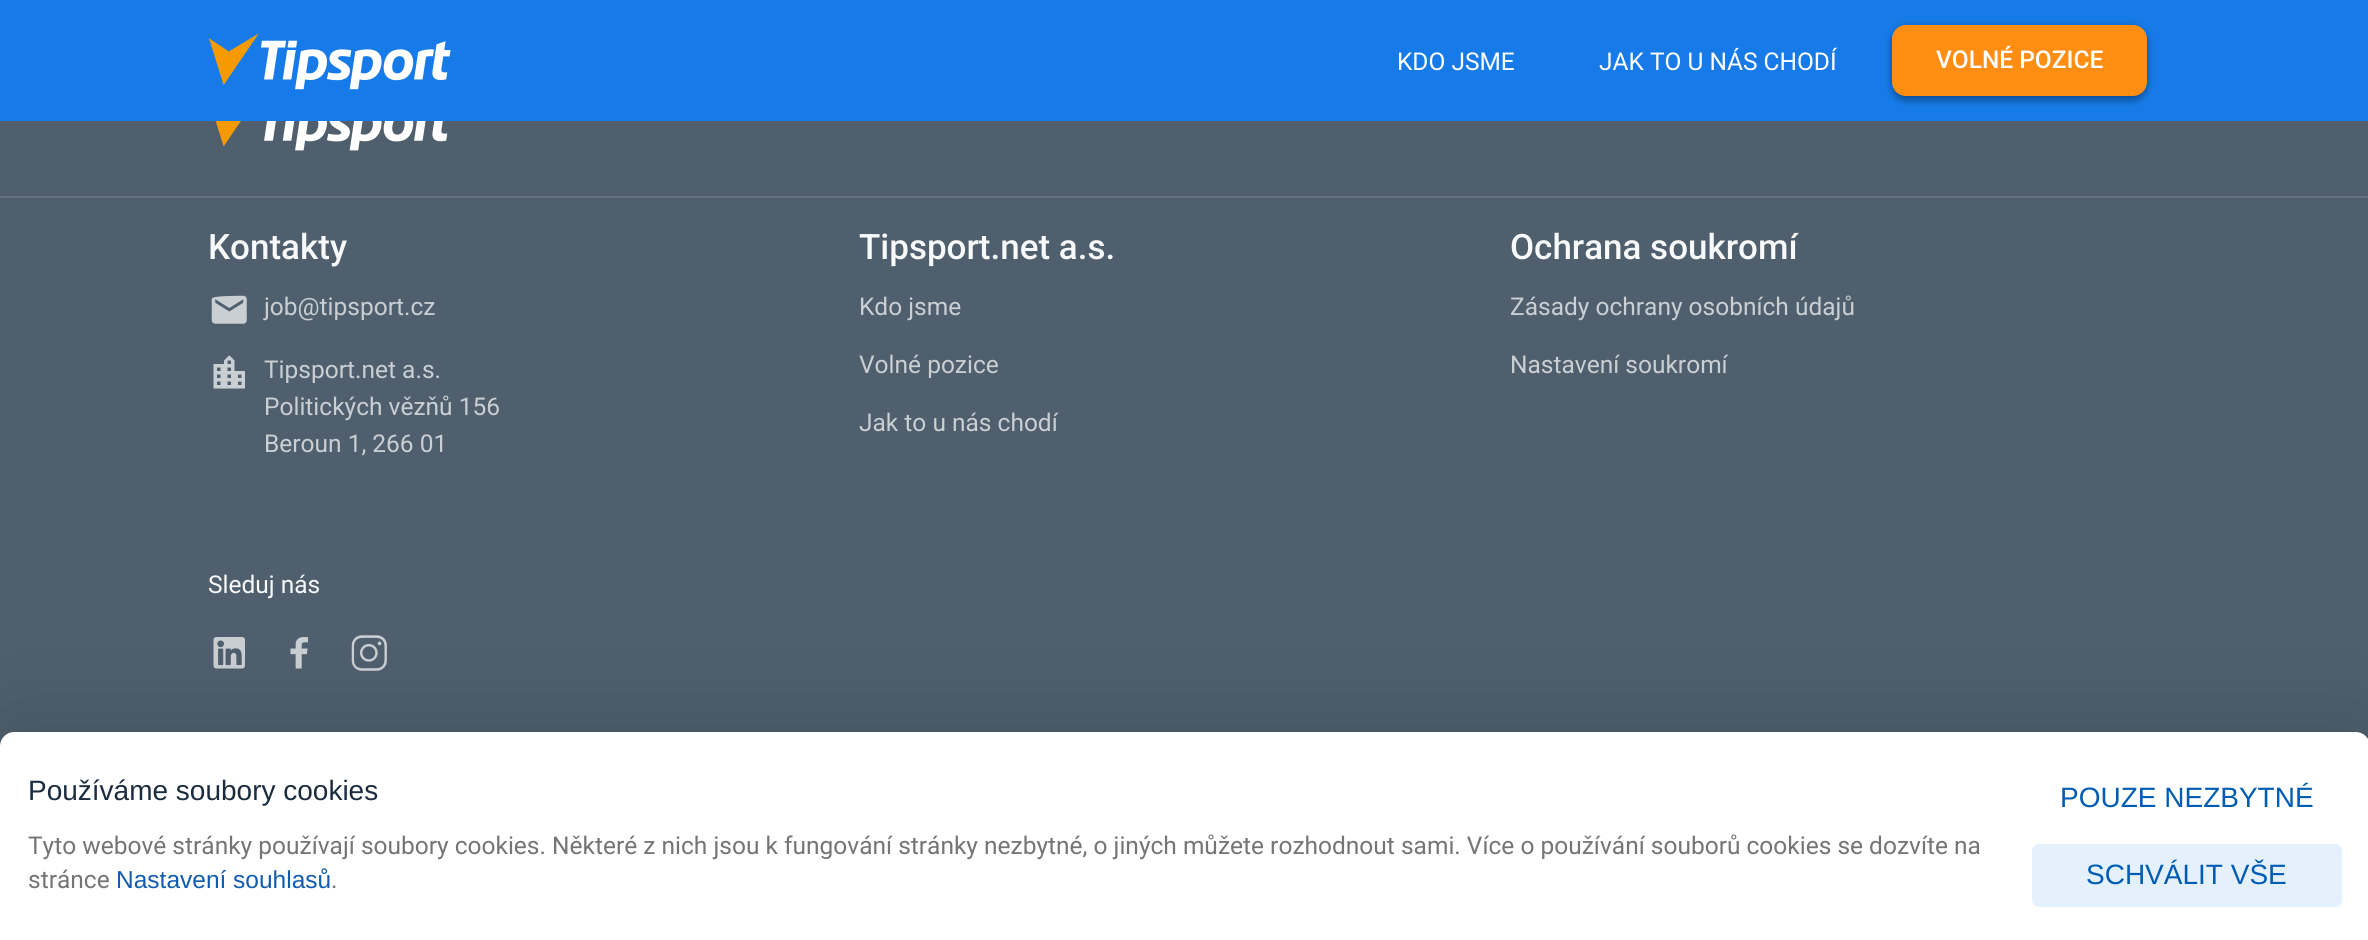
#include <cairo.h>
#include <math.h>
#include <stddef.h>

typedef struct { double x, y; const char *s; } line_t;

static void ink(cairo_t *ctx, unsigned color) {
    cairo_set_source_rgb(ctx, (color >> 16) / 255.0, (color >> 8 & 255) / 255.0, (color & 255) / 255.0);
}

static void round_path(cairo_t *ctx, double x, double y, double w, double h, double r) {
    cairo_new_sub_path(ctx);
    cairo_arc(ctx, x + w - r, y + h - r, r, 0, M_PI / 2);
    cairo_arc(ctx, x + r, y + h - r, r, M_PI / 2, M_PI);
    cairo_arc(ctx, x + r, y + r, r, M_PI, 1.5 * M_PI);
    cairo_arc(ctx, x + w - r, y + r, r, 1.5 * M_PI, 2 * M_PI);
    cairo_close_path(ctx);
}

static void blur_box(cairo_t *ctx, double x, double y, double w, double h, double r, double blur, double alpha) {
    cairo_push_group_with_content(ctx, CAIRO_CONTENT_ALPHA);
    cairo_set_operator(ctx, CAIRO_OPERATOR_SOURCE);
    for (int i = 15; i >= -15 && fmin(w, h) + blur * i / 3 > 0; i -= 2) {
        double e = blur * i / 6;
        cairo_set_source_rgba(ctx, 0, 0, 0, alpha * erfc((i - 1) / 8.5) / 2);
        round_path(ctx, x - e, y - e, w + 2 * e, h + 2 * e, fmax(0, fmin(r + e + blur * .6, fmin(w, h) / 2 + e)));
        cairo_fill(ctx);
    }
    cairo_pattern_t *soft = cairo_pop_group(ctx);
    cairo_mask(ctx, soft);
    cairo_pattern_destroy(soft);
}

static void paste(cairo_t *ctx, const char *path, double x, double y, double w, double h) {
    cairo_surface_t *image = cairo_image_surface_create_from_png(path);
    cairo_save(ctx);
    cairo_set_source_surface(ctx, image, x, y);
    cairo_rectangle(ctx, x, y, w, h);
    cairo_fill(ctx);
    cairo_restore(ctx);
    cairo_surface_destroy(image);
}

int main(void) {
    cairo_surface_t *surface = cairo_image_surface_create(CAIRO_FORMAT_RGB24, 2368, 940);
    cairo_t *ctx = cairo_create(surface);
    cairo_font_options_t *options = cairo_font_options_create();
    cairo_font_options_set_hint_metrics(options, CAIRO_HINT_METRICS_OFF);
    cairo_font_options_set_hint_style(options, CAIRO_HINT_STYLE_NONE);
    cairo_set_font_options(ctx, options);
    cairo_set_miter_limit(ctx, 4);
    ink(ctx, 0x4F5F6D);
    cairo_paint(ctx);
    ink(ctx, 0x167BE8);
    cairo_rectangle(ctx, 0, 0, 2368, 121);
    cairo_fill(ctx);
    paste(ctx, "media/1.png", 209, 33, 242, 57);
    cairo_select_font_face(ctx, "Roboto", CAIRO_FONT_SLANT_NORMAL, CAIRO_FONT_WEIGHT_NORMAL);
    cairo_set_font_size(ctx, 24.5);
    ink(ctx, 0xFFFFFF);
    cairo_move_to(ctx, 1397, 70);
    cairo_show_text(ctx, "KDO JSME");
    cairo_move_to(ctx, 1599, 70);
    cairo_show_text(ctx, "JAK TO U NÁS CHODÍ");
    ink(ctx, 0x000000);
    blur_box(ctx, 1892, 26, 255, 72, 14, 4.5, 0.2);
    blur_box(ctx, 1892, 30, 255, 72, 14, 3.5, 0.12);
    blur_box(ctx, 1892, 28, 255, 72, 14, 3.5, 0.14);
    ink(ctx, 0xFF8E13);
    round_path(ctx, 1893, 26, 253, 69, 13);
    cairo_fill_preserve(ctx);
    cairo_stroke(ctx);
    cairo_select_font_face(ctx, "Roboto Medium", CAIRO_FONT_SLANT_NORMAL, CAIRO_FONT_WEIGHT_NORMAL);
    ink(ctx, 0xFFFFFF);
    cairo_move_to(ctx, 1936, 68);
    cairo_show_text(ctx, "VOLNÉ POZICE");
    ink(ctx, 0x64727F);
    cairo_rectangle(ctx, 0, 196, 2368, 2);
    cairo_fill(ctx);
    paste(ctx, "media/2.png", 215, 121, 233, 30);
    cairo_set_font_size(ctx, 35);
    ink(ctx, 0xF8F9FA);
    cairo_move_to(ctx, 208, 259);
    cairo_show_text(ctx, "Kontakty");
    paste(ctx, "media/3.png", 211, 295, 36, 29);
    cairo_select_font_face(ctx, "Roboto", CAIRO_FONT_SLANT_NORMAL, CAIRO_FONT_WEIGHT_NORMAL);
    cairo_set_font_size(ctx, 24.5);
    ink(ctx, 0xCACFD3);
    cairo_move_to(ctx, 264, 315);
    cairo_show_text(ctx, "job@tipsport.cz");
    paste(ctx, "media/4.png", 213, 355, 32, 34);
    {
        static const line_t items[] = {
            {264, 378, "Tipsport.net a.s."},
            {264, 415, "Politických vězňů 156"},
            {264, 452, "Beroun 1, 266 01"},
        };
        for (size_t i = 0; i < sizeof items / sizeof *items; i++) {
            cairo_move_to(ctx, items[i].x, items[i].y);
            cairo_show_text(ctx, items[i].s);
        }
    }
    cairo_select_font_face(ctx, "Roboto Medium", CAIRO_FONT_SLANT_NORMAL, CAIRO_FONT_WEIGHT_NORMAL);
    cairo_set_font_size(ctx, 35);
    ink(ctx, 0xF8F9FA);
    cairo_move_to(ctx, 859, 259);
    cairo_show_text(ctx, "Tipsport.net a.s.");
    cairo_select_font_face(ctx, "Roboto", CAIRO_FONT_SLANT_NORMAL, CAIRO_FONT_WEIGHT_NORMAL);
    cairo_set_font_size(ctx, 24.5);
    ink(ctx, 0xCACFD3);
    {
        static const line_t items[] = {
            {859, 315, "Kdo jsme"},
            {859, 373, "Volné pozice"},
            {859, 431, "Jak to u nás chodí"},
        };
        for (size_t i = 0; i < sizeof items / sizeof *items; i++) {
            cairo_move_to(ctx, items[i].x, items[i].y);
            cairo_show_text(ctx, items[i].s);
        }
    }
    cairo_select_font_face(ctx, "Roboto Medium", CAIRO_FONT_SLANT_NORMAL, CAIRO_FONT_WEIGHT_NORMAL);
    cairo_set_font_size(ctx, 35);
    ink(ctx, 0xF8F9FA);
    cairo_move_to(ctx, 1510, 259);
    cairo_show_text(ctx, "Ochrana soukromí");
    cairo_select_font_face(ctx, "Roboto", CAIRO_FONT_SLANT_NORMAL, CAIRO_FONT_WEIGHT_NORMAL);
    cairo_set_font_size(ctx, 24.5);
    ink(ctx, 0xCACFD3);
    cairo_move_to(ctx, 1510, 315);
    cairo_show_text(ctx, "Zásady ochrany osobních údajů");
    cairo_move_to(ctx, 1510, 373);
    cairo_show_text(ctx, "Nastavení soukromí");
    ink(ctx, 0xF8F9FA);
    cairo_move_to(ctx, 208, 593);
    cairo_show_text(ctx, "Sleduj nás");
    paste(ctx, "media/5.png", 213, 637, 32, 32);
    paste(ctx, "media/6.png", 290, 637, 18, 32);
    paste(ctx, "media/7.png", 351, 635, 36, 36);
    ink(ctx, 0x000000);
    blur_box(ctx, 0, 718, 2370, 210, 14, 48, 0.14);
    ink(ctx, 0xFFFFFF);
    cairo_new_path(ctx);
    cairo_move_to(ctx, 14, 732);
    cairo_line_to(ctx, 2356, 732);
    cairo_curve_to(ctx, 2363.5, 732, 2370, 738.5, 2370, 746);
    cairo_line_to(ctx, 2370, 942);
    cairo_line_to(ctx, 0, 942);
    cairo_line_to(ctx, 0, 746);
    cairo_curve_to(ctx, 0, 738.5, 6.5, 732, 14, 732);
    cairo_close_path(ctx);
    cairo_fill(ctx);
    cairo_select_font_face(ctx, "Liberation Sans", CAIRO_FONT_SLANT_NORMAL, CAIRO_FONT_WEIGHT_NORMAL);
    cairo_set_font_size(ctx, 28);
    ink(ctx, 0x1A2C3E);
    cairo_move_to(ctx, 28, 800);
    cairo_show_text(ctx, "Používáme soubory cookies");
    cairo_select_font_face(ctx, "Roboto", CAIRO_FONT_SLANT_NORMAL, CAIRO_FONT_WEIGHT_NORMAL);
    cairo_set_font_size(ctx, 24.5);
    ink(ctx, 0x757575);
    cairo_move_to(ctx, 28, 854);
    cairo_show_text(ctx, "Tyto webové stránky používají soubory cookies. Některé z nich jsou k fungování stránky nezbytné, o jiných můžete rozhodnout sami. Více o používání souborů cookies se dozvíte na");
    cairo_move_to(ctx, 28, 888);
    cairo_show_text(ctx, "stránce");
    cairo_select_font_face(ctx, "Liberation Sans", CAIRO_FONT_SLANT_NORMAL, CAIRO_FONT_WEIGHT_NORMAL);
    ink(ctx, 0x115CAD);
    cairo_move_to(ctx, 116, 888);
    cairo_show_text(ctx, "Nastavení souhlasů");
    cairo_select_font_face(ctx, "Roboto", CAIRO_FONT_SLANT_NORMAL, CAIRO_FONT_WEIGHT_NORMAL);
    ink(ctx, 0x757575);
    cairo_move_to(ctx, 331, 888);
    cairo_show_text(ctx, ".");
    cairo_select_font_face(ctx, "Liberation Sans", CAIRO_FONT_SLANT_NORMAL, CAIRO_FONT_WEIGHT_NORMAL);
    cairo_set_font_size(ctx, 28);
    ink(ctx, 0x005CB2);
    cairo_move_to(ctx, 2060, 807);
    cairo_show_text(ctx, "POUZE NEZBYTNÉ");
    ink(ctx, 0xE4F1FC);
    round_path(ctx, 2032, 844, 310, 63, 7);
    cairo_fill(ctx);
    ink(ctx, 0x005CB2);
    cairo_move_to(ctx, 2086, 884);
    cairo_show_text(ctx, "SCHVÁLIT VŠE");
    cairo_surface_write_to_png(surface, "image.png");
    cairo_font_options_destroy(options);
    cairo_destroy(ctx);
    cairo_surface_destroy(surface);
    return 0;
}
